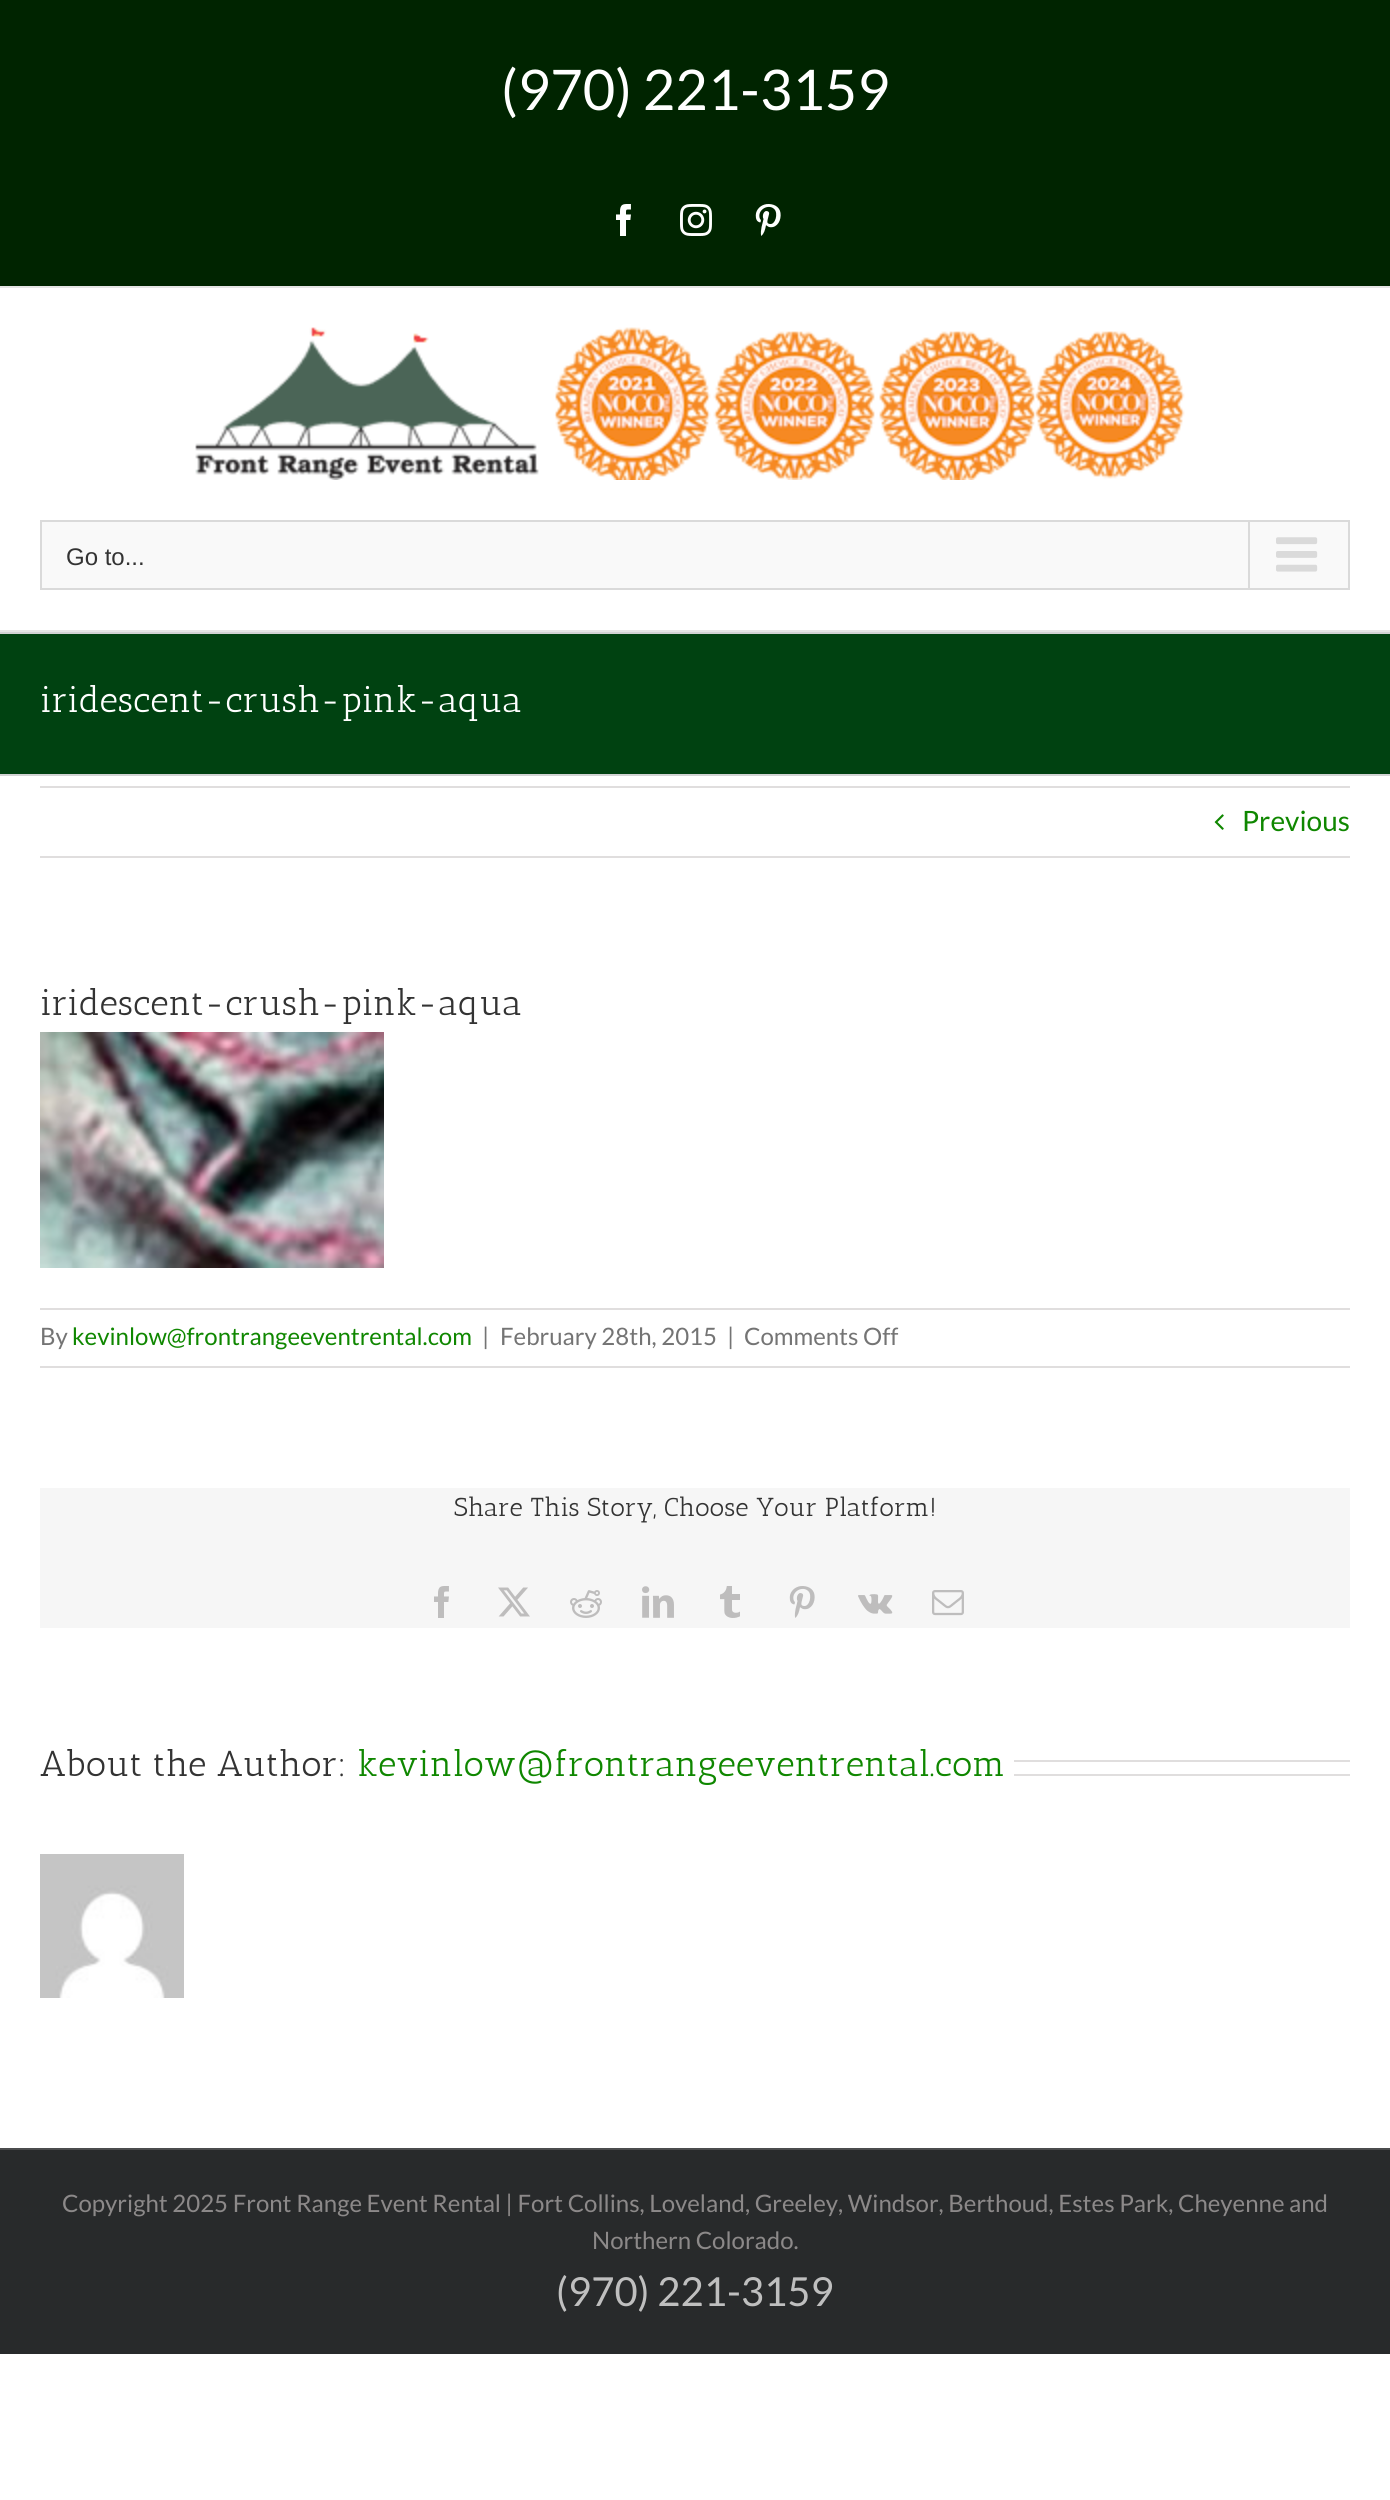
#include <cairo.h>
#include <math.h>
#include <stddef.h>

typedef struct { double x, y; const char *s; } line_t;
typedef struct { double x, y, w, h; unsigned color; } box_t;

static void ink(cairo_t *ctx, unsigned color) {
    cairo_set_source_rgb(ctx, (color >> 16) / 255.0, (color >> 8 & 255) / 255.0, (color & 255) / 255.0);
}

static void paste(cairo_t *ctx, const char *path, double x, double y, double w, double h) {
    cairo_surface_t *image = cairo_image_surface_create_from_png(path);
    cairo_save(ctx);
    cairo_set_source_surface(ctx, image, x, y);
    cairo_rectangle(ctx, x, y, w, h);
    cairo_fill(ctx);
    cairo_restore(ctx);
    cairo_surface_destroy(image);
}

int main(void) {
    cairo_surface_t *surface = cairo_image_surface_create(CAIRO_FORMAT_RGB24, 1390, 2500);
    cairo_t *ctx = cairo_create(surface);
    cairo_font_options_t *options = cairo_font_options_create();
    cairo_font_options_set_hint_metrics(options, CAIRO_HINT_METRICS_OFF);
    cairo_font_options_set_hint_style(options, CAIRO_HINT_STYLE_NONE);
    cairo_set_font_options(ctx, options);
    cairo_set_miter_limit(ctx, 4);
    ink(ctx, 0xFFFFFF);
    cairo_paint(ctx);
    ink(ctx, 0x002400);
    cairo_rectangle(ctx, 0, 0, 1390, 286);
    cairo_fill(ctx);
    ink(ctx, 0xE5E5E5);
    cairo_rectangle(ctx, 0, 286, 1390, 2);
    cairo_fill(ctx);
    cairo_select_font_face(ctx, "Lato", CAIRO_FONT_SLANT_NORMAL, CAIRO_FONT_WEIGHT_NORMAL);
    cairo_set_font_size(ctx, 56);
    ink(ctx, 0xFFFFFF);
    cairo_move_to(ctx, 501, 110);
    cairo_show_text(ctx, "(970) 221-3159");
    paste(ctx, "media/1.png", 616, 204, 15, 32);
    paste(ctx, "media/2.png", 680, 204, 32, 32);
    paste(ctx, "media/3.png", 755, 204, 26, 32);
    ink(ctx, 0xE5E5E5);
    cairo_rectangle(ctx, 0, 630, 1390, 2);
    cairo_fill(ctx);
    paste(ctx, "media/4.png", 195, 327, 990, 153);
    ink(ctx, 0xF9F9F9);
    cairo_rectangle(ctx, 41, 521, 1308, 68);
    cairo_fill_preserve(ctx);
    ink(ctx, 0xDADADA);
    cairo_stroke(ctx);
    cairo_select_font_face(ctx, "Liberation Sans", CAIRO_FONT_SLANT_NORMAL, CAIRO_FONT_WEIGHT_NORMAL);
    cairo_set_font_size(ctx, 24);
    ink(ctx, 0x333333);
    cairo_move_to(ctx, 66, 565);
    cairo_show_text(ctx, "Go to...");
    ink(ctx, 0xDADADA);
    cairo_rectangle(ctx, 1248, 522, 2, 66);
    cairo_fill(ctx);
    paste(ctx, "media/5.png", 1276, 537, 42, 35);
    {
        static const box_t items[] = {
            {0, 634, 1390, 140, 0x004211},
            {0, 632, 1390, 2, 0xD2D3D4},
            {0, 774, 1390, 2, 0xD2D3D4},
        };
        for (size_t i = 0; i < sizeof items / sizeof *items; i++) {
            ink(ctx, items[i].color);
            cairo_rectangle(ctx, items[i].x, items[i].y, items[i].w, items[i].h);
            cairo_fill(ctx);
        }
    }
    cairo_select_font_face(ctx, "Antic Slab", CAIRO_FONT_SLANT_NORMAL, CAIRO_FONT_WEIGHT_NORMAL);
    cairo_set_font_size(ctx, 36);
    ink(ctx, 0xFFFFFF);
    cairo_move_to(ctx, 40, 712);
    cairo_show_text(ctx, "iridescent-crush-pink-aqua");
    ink(ctx, 0xE0DEDE);
    cairo_rectangle(ctx, 40, 786, 1310, 2);
    cairo_fill(ctx);
    cairo_rectangle(ctx, 40, 856, 1310, 2);
    cairo_fill(ctx);
    paste(ctx, "media/6.png", 1214, 814, 10, 16);
    cairo_select_font_face(ctx, "Lato", CAIRO_FONT_SLANT_NORMAL, CAIRO_FONT_WEIGHT_NORMAL);
    cairo_set_font_size(ctx, 28);
    ink(ctx, 0x0F8700);
    cairo_move_to(ctx, 1242, 831);
    cairo_show_text(ctx, "Previous");
    cairo_select_font_face(ctx, "Antic Slab", CAIRO_FONT_SLANT_NORMAL, CAIRO_FONT_WEIGHT_NORMAL);
    cairo_set_font_size(ctx, 36);
    ink(ctx, 0x333333);
    cairo_move_to(ctx, 40, 1015);
    cairo_show_text(ctx, "iridescent-crush-pink-aqua");
    paste(ctx, "media/7.png", 40, 1032, 344, 236);
    ink(ctx, 0xE0DEDE);
    cairo_rectangle(ctx, 40, 1308, 1310, 2);
    cairo_fill(ctx);
    cairo_rectangle(ctx, 40, 1366, 1310, 2);
    cairo_fill(ctx);
    cairo_select_font_face(ctx, "Lato", CAIRO_FONT_SLANT_NORMAL, CAIRO_FONT_WEIGHT_NORMAL);
    cairo_set_font_size(ctx, 24);
    ink(ctx, 0x747474);
    cairo_move_to(ctx, 40, 1345);
    cairo_show_text(ctx, "By");
    ink(ctx, 0x0F8700);
    cairo_move_to(ctx, 72, 1345);
    cairo_show_text(ctx, "kevinlow@frontrangeeventrental.com");
    ink(ctx, 0x747474);
    {
        static const line_t items[] = {
            {482, 1345, "|"},
            {500, 1345, "February 28th, 2015"},
            {727, 1345, "|"},
            {744, 1345, "Comments Off"},
        };
        for (size_t i = 0; i < sizeof items / sizeof *items; i++) {
            cairo_move_to(ctx, items[i].x, items[i].y);
            cairo_show_text(ctx, items[i].s);
        }
    }
    ink(ctx, 0xF6F6F6);
    cairo_rectangle(ctx, 40, 1488, 1310, 140);
    cairo_fill(ctx);
    cairo_select_font_face(ctx, "Antic Slab", CAIRO_FONT_SLANT_NORMAL, CAIRO_FONT_WEIGHT_NORMAL);
    cairo_set_font_size(ctx, 26);
    ink(ctx, 0x333333);
    cairo_move_to(ctx, 454, 1516);
    cairo_show_text(ctx, "Share This Story, Choose Your Platform!");
    paste(ctx, "media/8.png", 434, 1586, 15, 32);
    paste(ctx, "media/9.png", 498, 1587, 32, 30);
    paste(ctx, "media/10.png", 570, 1590, 32, 28);
    paste(ctx, "media/11.png", 642, 1586, 32, 32);
    paste(ctx, "media/12.png", 720, 1586, 20, 32);
    paste(ctx, "media/13.png", 789, 1586, 26, 32);
    paste(ctx, "media/14.png", 858, 1594, 35, 20);
    paste(ctx, "media/15.png", 932, 1590, 32, 26);
    cairo_set_font_size(ctx, 36);
    cairo_move_to(ctx, 40, 1776);
    cairo_show_text(ctx, "About the Author:");
    ink(ctx, 0x0F8700);
    cairo_move_to(ctx, 357, 1776);
    cairo_show_text(ctx, "kevinlow@frontrangeeventrental.com");
    ink(ctx, 0xE0DEDE);
    cairo_rectangle(ctx, 1014, 1760, 336, 2);
    cairo_fill(ctx);
    cairo_rectangle(ctx, 1014, 1774, 336, 2);
    cairo_fill(ctx);
    paste(ctx, "media/16.png", 40, 1854, 144, 144);
    ink(ctx, 0x282A2B);
    cairo_rectangle(ctx, 0, 2150, 1390, 204);
    cairo_fill(ctx);
    ink(ctx, 0x4B4C4D);
    cairo_rectangle(ctx, 0, 2148, 1390, 2);
    cairo_fill(ctx);
    cairo_select_font_face(ctx, "Lato", CAIRO_FONT_SLANT_NORMAL, CAIRO_FONT_WEIGHT_NORMAL);
    cairo_set_font_size(ctx, 24);
    ink(ctx, 0x8C8989);
    cairo_move_to(ctx, 62, 2212);
    cairo_show_text(ctx, "Copyright 2025 Front Range Event Rental | Fort Collins, Loveland, Greeley, Windsor, Berthoud, Estes Park, Cheyenne and");
    cairo_move_to(ctx, 592, 2249);
    cairo_show_text(ctx, "Northern Colorado.");
    cairo_set_font_size(ctx, 40);
    ink(ctx, 0xBFBFBF);
    cairo_move_to(ctx, 556, 2306);
    cairo_show_text(ctx, "(970) 221-3159");
    cairo_surface_write_to_png(surface, "image.png");
    cairo_font_options_destroy(options);
    cairo_destroy(ctx);
    cairo_surface_destroy(surface);
    return 0;
}
